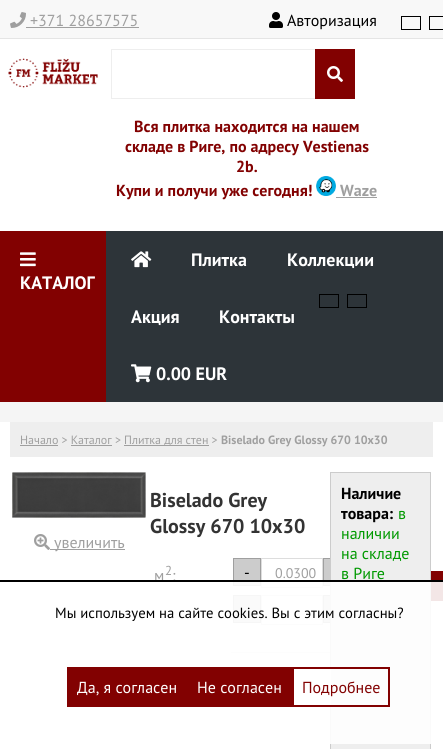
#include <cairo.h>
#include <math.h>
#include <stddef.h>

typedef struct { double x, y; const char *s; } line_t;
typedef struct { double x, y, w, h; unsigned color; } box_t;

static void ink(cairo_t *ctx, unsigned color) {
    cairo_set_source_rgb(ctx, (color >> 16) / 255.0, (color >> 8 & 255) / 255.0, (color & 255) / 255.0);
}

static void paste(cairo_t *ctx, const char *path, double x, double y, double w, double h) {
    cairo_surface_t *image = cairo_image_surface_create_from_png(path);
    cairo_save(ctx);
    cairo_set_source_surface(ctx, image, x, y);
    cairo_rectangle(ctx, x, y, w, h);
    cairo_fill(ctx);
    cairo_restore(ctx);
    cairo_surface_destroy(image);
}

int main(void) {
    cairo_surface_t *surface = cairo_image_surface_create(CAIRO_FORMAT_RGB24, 443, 749);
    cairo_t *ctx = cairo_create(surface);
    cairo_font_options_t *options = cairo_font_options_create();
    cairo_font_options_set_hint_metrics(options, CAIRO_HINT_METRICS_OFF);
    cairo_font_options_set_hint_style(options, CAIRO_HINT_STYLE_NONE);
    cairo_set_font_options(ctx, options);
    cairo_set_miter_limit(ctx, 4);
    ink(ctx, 0xF5F5F5);
    cairo_paint(ctx);
    ink(ctx, 0xF8F8F8);
    cairo_rectangle(ctx, 0, 0, 443, 38);
    cairo_fill(ctx);
    ink(ctx, 0xE5E5E5);
    cairo_rectangle(ctx, 0, 38, 443, 1);
    cairo_fill(ctx);
    paste(ctx, "media/1.png", 10, 12, 16, 16);
    cairo_select_font_face(ctx, "PT Sans", CAIRO_FONT_SLANT_NORMAL, CAIRO_FONT_WEIGHT_NORMAL);
    cairo_set_font_size(ctx, 16);
    ink(ctx, 0x9F9F9F);
    cairo_move_to(ctx, 30, 26);
    cairo_show_text(ctx, "+371 28657575");
    cairo_rectangle(ctx, 26, 27, 113, 1);
    cairo_fill(ctx);
    paste(ctx, "media/2.png", 269, 12, 14, 16);
    ink(ctx, 0x000000);
    cairo_move_to(ctx, 287, 26);
    cairo_show_text(ctx, "Авторизация");
    cairo_rectangle(ctx, 401.5, 16.5, 19, 13);
    cairo_set_line_width(ctx, 1);
    cairo_stroke(ctx);
    cairo_rectangle(ctx, 429.5, 16.5, 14, 13);
    cairo_stroke(ctx);
    ink(ctx, 0xFFFFFF);
    cairo_rectangle(ctx, 0, 39, 443, 192);
    cairo_fill(ctx);
    paste(ctx, "media/3.png", 8, 58, 90, 30);
    {
        static const box_t items[] = {
            {111, 49, 205, 1, 0xEEEEEE},
            {111, 98, 205, 1, 0xEEEEEE},
            {111, 49, 1, 50, 0xEEEEEE},
            {315, 49, 40, 50, 0x820101},
        };
        for (size_t i = 0; i < sizeof items / sizeof *items; i++) {
            ink(ctx, items[i].color);
            cairo_rectangle(ctx, items[i].x, items[i].y, items[i].w, items[i].h);
            cairo_fill(ctx);
        }
    }
    paste(ctx, "media/4.png", 327, 66, 16, 16);
    cairo_select_font_face(ctx, "PT Sans", CAIRO_FONT_SLANT_NORMAL, CAIRO_FONT_WEIGHT_BOLD);
    {
        static const line_t items[] = {
            {134, 132, "Вся плитка находится на нашем"},
            {125, 152, "складе в Риге, по адресу Vestienas"},
            {236, 172, "2b."},
            {116, 196, "Купи и получи уже сегодня!"},
        };
        for (size_t i = 0; i < sizeof items / sizeof *items; i++) {
            cairo_move_to(ctx, items[i].x, items[i].y);
            cairo_show_text(ctx, items[i].s);
        }
    }
    paste(ctx, "media/5.png", 316, 176, 20, 20);
    ink(ctx, 0x9F9F9F);
    cairo_move_to(ctx, 340, 196);
    cairo_show_text(ctx, "Waze");
    {
        static const box_t items[] = {
            {336, 197, 41, 1, 0x9F9F9F},
            {106, 231, 337, 171, 0x2D3439},
            {0, 231, 106, 171, 0x820101},
        };
        for (size_t i = 0; i < sizeof items / sizeof *items; i++) {
            ink(ctx, items[i].color);
            cairo_rectangle(ctx, items[i].x, items[i].y, items[i].w, items[i].h);
            cairo_fill(ctx);
        }
    }
    paste(ctx, "media/6.png", 20, 252, 16, 15);
    cairo_set_font_size(ctx, 18);
    ink(ctx, 0xFFFFFF);
    cairo_move_to(ctx, 20, 289);
    cairo_show_text(ctx, "КАТАЛОГ");
    paste(ctx, "media/7.png", 131, 251, 21, 17);
    cairo_move_to(ctx, 191, 266);
    cairo_show_text(ctx, "Плитка");
    cairo_move_to(ctx, 287, 266);
    cairo_show_text(ctx, "Коллекции");
    cairo_rectangle(ctx, 319.5, 294.5, 19, 13);
    ink(ctx, 0x000000);
    cairo_stroke(ctx);
    cairo_rectangle(ctx, 347.5, 294.5, 19, 13);
    cairo_stroke(ctx);
    ink(ctx, 0xFFFFFF);
    cairo_move_to(ctx, 131, 323);
    cairo_show_text(ctx, "Акция");
    cairo_move_to(ctx, 219, 323);
    cairo_show_text(ctx, "Контакты");
    paste(ctx, "media/8.png", 131, 364, 21, 19);
    cairo_move_to(ctx, 156, 380);
    cairo_show_text(ctx, "0.00 EUR");
    cairo_rectangle(ctx, 0, 422, 443, 327);
    cairo_fill(ctx);
    ink(ctx, 0xEEEEEE);
    cairo_rectangle(ctx, 10, 422, 423, 35);
    cairo_fill(ctx);
    cairo_select_font_face(ctx, "PT Sans", CAIRO_FONT_SLANT_NORMAL, CAIRO_FONT_WEIGHT_NORMAL);
    cairo_set_font_size(ctx, 12);
    ink(ctx, 0x9F9F9F);
    cairo_move_to(ctx, 20, 444);
    cairo_show_text(ctx, "Начало > Каталог >");
    cairo_rectangle(ctx, 20, 445, 38, 1);
    cairo_fill(ctx);
    cairo_rectangle(ctx, 124, 445, 85, 1);
    cairo_fill(ctx);
    cairo_move_to(ctx, 124, 444);
    cairo_show_text(ctx, "Плитка для стен >");
    cairo_select_font_face(ctx, "PT Sans", CAIRO_FONT_SLANT_NORMAL, CAIRO_FONT_WEIGHT_BOLD);
    cairo_move_to(ctx, 221, 444);
    cairo_show_text(ctx, "Biselado Grey Glossy 670 10x30");
    cairo_rectangle(ctx, 71, 445, 41, 1);
    cairo_fill(ctx);
    paste(ctx, "media/9.png", 12, 472, 134, 46);
    paste(ctx, "media/10.png", 34, 534, 16, 16);
    cairo_rectangle(ctx, 50, 549, 75, 1);
    cairo_fill(ctx);
    cairo_select_font_face(ctx, "PT Sans", CAIRO_FONT_SLANT_NORMAL, CAIRO_FONT_WEIGHT_NORMAL);
    cairo_set_font_size(ctx, 16);
    cairo_move_to(ctx, 54, 548);
    cairo_show_text(ctx, "увеличить");
    cairo_select_font_face(ctx, "PT Sans", CAIRO_FONT_SLANT_NORMAL, CAIRO_FONT_WEIGHT_BOLD);
    cairo_set_font_size(ctx, 20);
    ink(ctx, 0x333333);
    cairo_move_to(ctx, 150, 507);
    cairo_show_text(ctx, "Biselado Grey");
    cairo_move_to(ctx, 150, 533);
    cairo_show_text(ctx, "Glossy 670 10x30");
    cairo_select_font_face(ctx, "PT Sans", CAIRO_FONT_SLANT_NORMAL, CAIRO_FONT_WEIGHT_NORMAL);
    cairo_set_font_size(ctx, 13);
    ink(ctx, 0x9F9F9F);
    cairo_move_to(ctx, 165, 575);
    cairo_show_text(ctx, "2");
    cairo_set_font_size(ctx, 16);
    cairo_move_to(ctx, 154, 581);
    cairo_show_text(ctx, "м");
    cairo_move_to(ctx, 172, 581);
    cairo_show_text(ctx, ":");
    ink(ctx, 0xCCCCCC);
    cairo_rectangle(ctx, 324, 559, 6, 26);
    cairo_fill(ctx);
    cairo_rectangle(ctx, 323.5, 558.5, 29, 27);
    ink(ctx, 0x9F9F9F);
    cairo_stroke(ctx);
    ink(ctx, 0xCCCCCC);
    cairo_rectangle(ctx, 233.5, 558.5, 27, 27);
    cairo_fill_preserve(ctx);
    ink(ctx, 0x9F9F9F);
    cairo_stroke(ctx);
    ink(ctx, 0x000000);
    cairo_move_to(ctx, 244, 578);
    cairo_show_text(ctx, "-");
    cairo_rectangle(ctx, 261.5, 558.5, 61, 29);
    ink(ctx, 0xDDDDDD);
    cairo_stroke(ctx);
    cairo_set_font_size(ctx, 14);
    ink(ctx, 0x9F9F9F);
    cairo_move_to(ctx, 275, 578);
    cairo_show_text(ctx, "0.0300");
    ink(ctx, 0xCCCCCC);
    cairo_rectangle(ctx, 233.5, 595.5, 27, 27);
    cairo_fill_preserve(ctx);
    ink(ctx, 0x9F9F9F);
    cairo_stroke(ctx);
    cairo_rectangle(ctx, 261.5, 595.5, 61, 29);
    ink(ctx, 0xDDDDDD);
    cairo_stroke(ctx);
    ink(ctx, 0xCCCCCC);
    cairo_rectangle(ctx, 324, 596, 6, 26);
    cairo_fill(ctx);
    cairo_rectangle(ctx, 323.5, 595.5, 29, 27);
    ink(ctx, 0x9F9F9F);
    cairo_stroke(ctx);
    ink(ctx, 0xEEEEEE);
    cairo_rectangle(ctx, 231, 652, 99, 1);
    cairo_fill(ctx);
    ink(ctx, 0x820101);
    cairo_rectangle(ctx, 431, 571, 12, 30);
    cairo_fill(ctx);
    ink(ctx, 0xEEEEEE);
    cairo_rectangle(ctx, 330.5, 472.5, 100, 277);
    cairo_fill_preserve(ctx);
    ink(ctx, 0xCCCCCC);
    cairo_stroke(ctx);
    cairo_select_font_face(ctx, "PT Sans", CAIRO_FONT_SLANT_NORMAL, CAIRO_FONT_WEIGHT_BOLD);
    cairo_set_font_size(ctx, 16);
    ink(ctx, 0x000000);
    cairo_move_to(ctx, 341, 499);
    cairo_show_text(ctx, "Наличие");
    cairo_move_to(ctx, 341, 519);
    cairo_show_text(ctx, "товара:");
    cairo_select_font_face(ctx, "PT Sans", CAIRO_FONT_SLANT_NORMAL, CAIRO_FONT_WEIGHT_NORMAL);
    ink(ctx, 0x009900);
    {
        static const line_t items[] = {
            {398, 519, "в"},
            {341, 539, "наличии"},
            {341, 559, "на складе"},
            {341, 579, "в Риге"},
        };
        for (size_t i = 0; i < sizeof items / sizeof *items; i++) {
            cairo_move_to(ctx, items[i].x, items[i].y);
            cairo_show_text(ctx, items[i].s);
        }
    }
    cairo_set_source_rgba(ctx, 1, 1, 1, 0.9);
    cairo_rectangle(ctx, 231, 582, 212, 162);
    cairo_fill(ctx);
    ink(ctx, 0x000000);
    cairo_rectangle(ctx, 0, 580, 443, 2);
    cairo_fill(ctx);
    cairo_set_font_size(ctx, 14.7);
    cairo_move_to(ctx, 55, 618);
    cairo_show_text(ctx, "Мы используем на сайте cookies. Вы с этим согласны?");
    ink(ctx, 0x820101);
    cairo_rectangle(ctx, 67, 667, 225, 40);
    cairo_fill(ctx);
    cairo_set_font_size(ctx, 16);
    ink(ctx, 0xFFFFFF);
    cairo_move_to(ctx, 77, 693);
    cairo_show_text(ctx, "Да, я согласен");
    cairo_move_to(ctx, 197, 693);
    cairo_show_text(ctx, "Не согласен");
    cairo_rectangle(ctx, 330, 669, 1, 36);
    cairo_fill(ctx);
    cairo_rectangle(ctx, 293, 668, 96, 38);
    ink(ctx, 0x820101);
    cairo_set_line_width(ctx, 2);
    cairo_stroke(ctx);
    cairo_move_to(ctx, 302, 693);
    cairo_show_text(ctx, "Подробнее");
    cairo_surface_write_to_png(surface, "image.png");
    cairo_font_options_destroy(options);
    cairo_destroy(ctx);
    cairo_surface_destroy(surface);
    return 0;
}
